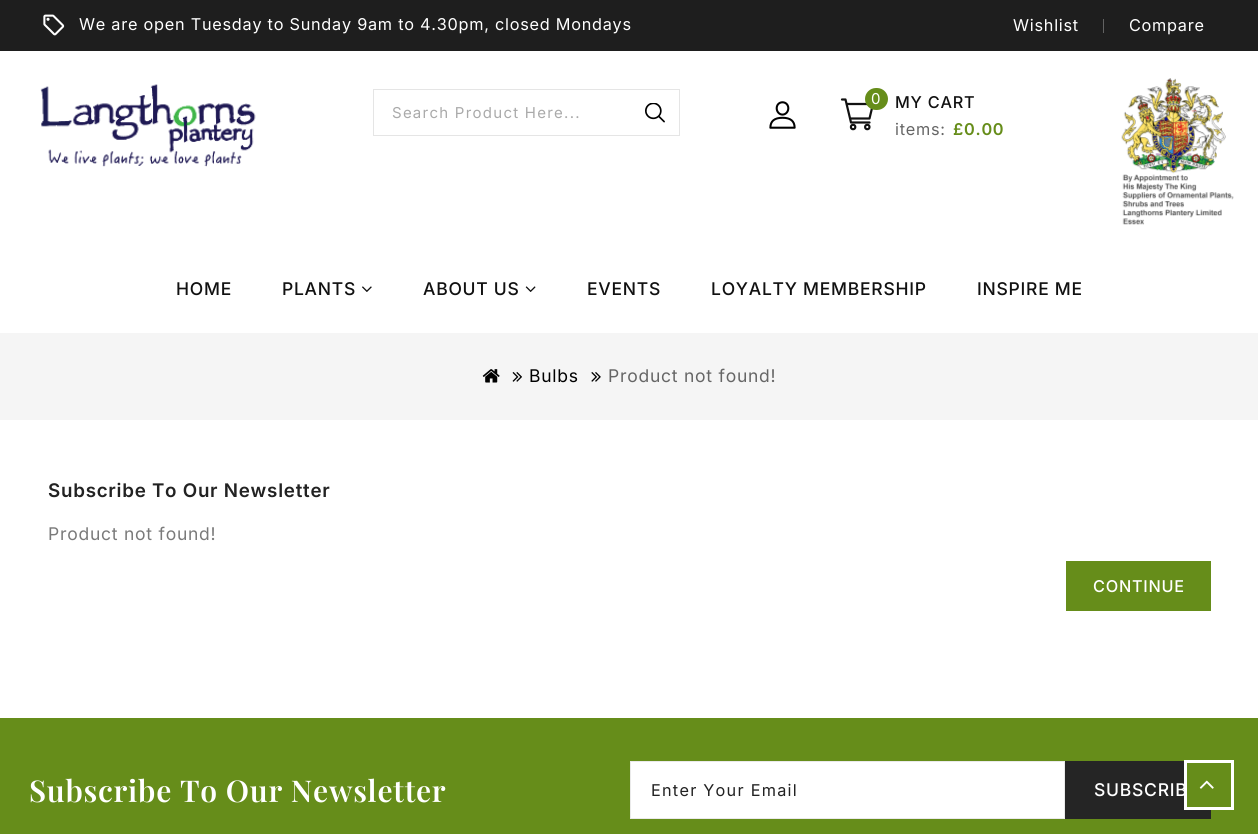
#include <cairo.h>
#include <math.h>
#include <stddef.h>

typedef struct { double x, y; const char *s; } line_t;

static void ink(cairo_t *ctx, unsigned color) {
    cairo_set_source_rgb(ctx, (color >> 16) / 255.0, (color >> 8 & 255) / 255.0, (color & 255) / 255.0);
}

static void write_spaced(cairo_t *ctx, double x, double y, const char *s, double letter, double word) {
    cairo_move_to(ctx, x, y);
    while (*s) {
        char ch[5] = {0};
        int n = 0;
        do ch[n++] = *s++; while ((*s & 0xC0) == 0x80);
        cairo_show_text(ctx, ch);
        cairo_rel_move_to(ctx, letter + word * (*ch == ' '), 0);
    }
}

static void round_path(cairo_t *ctx, double x, double y, double w, double h, double r) {
    cairo_new_sub_path(ctx);
    cairo_arc(ctx, x + w - r, y + h - r, r, 0, M_PI / 2);
    cairo_arc(ctx, x + r, y + h - r, r, M_PI / 2, M_PI);
    cairo_arc(ctx, x + r, y + r, r, M_PI, 1.5 * M_PI);
    cairo_arc(ctx, x + w - r, y + r, r, 1.5 * M_PI, 2 * M_PI);
    cairo_close_path(ctx);
}

static void paste(cairo_t *ctx, const char *path, double x, double y, double w, double h) {
    cairo_surface_t *image = cairo_image_surface_create_from_png(path);
    cairo_save(ctx);
    cairo_set_source_surface(ctx, image, x, y);
    cairo_rectangle(ctx, x, y, w, h);
    cairo_fill(ctx);
    cairo_restore(ctx);
    cairo_surface_destroy(image);
}

int main(void) {
    cairo_surface_t *surface = cairo_image_surface_create(CAIRO_FORMAT_RGB24, 1258, 834);
    cairo_t *ctx = cairo_create(surface);
    cairo_font_options_t *options = cairo_font_options_create();
    cairo_font_options_set_hint_metrics(options, CAIRO_HINT_METRICS_OFF);
    cairo_font_options_set_hint_style(options, CAIRO_HINT_STYLE_NONE);
    cairo_set_font_options(ctx, options);
    cairo_set_miter_limit(ctx, 4);
    ink(ctx, 0xFFFFFF);
    cairo_paint(ctx);
    ink(ctx, 0x1E1E1E);
    cairo_rectangle(ctx, 0, 0, 1258, 51);
    cairo_fill(ctx);
    paste(ctx, "media/1.png", 43, 14, 22, 22);
    cairo_select_font_face(ctx, "Inter", CAIRO_FONT_SLANT_NORMAL, CAIRO_FONT_WEIGHT_NORMAL);
    cairo_set_font_size(ctx, 16.25);
    ink(ctx, 0xFFFFFF);
    write_spaced(ctx, 79, 30, "We are open Tuesday to Sunday 9am to 4.30pm, closed Mondays", 0.75, 0);
    write_spaced(ctx, 1013, 31, "Wishlist", 0.75, 0);
    ink(ctx, 0x626262);
    cairo_rectangle(ctx, 1103, 19, 1, 14);
    cairo_fill(ctx);
    ink(ctx, 0xFFFFFF);
    write_spaced(ctx, 1129, 31, "Compare", 0.75, 0);
    paste(ctx, "media/2.png", 40, 84, 216, 83);
    cairo_rectangle(ctx, 373.5, 89.5, 306, 46);
    ink(ctx, 0xE5E5E5);
    cairo_set_line_width(ctx, 1);
    cairo_stroke(ctx);
    cairo_set_font_size(ctx, 15);
    ink(ctx, 0xAAAAAA);
    write_spaced(ctx, 392, 118, "Search Product Here...", 1.25, 0);
    paste(ctx, "media/3.png", 645, 103, 20, 20);
    paste(ctx, "media/4.png", 769, 101, 27, 28);
    cairo_new_path(ctx);
    cairo_move_to(ctx, 846.5, 104);
    cairo_line_to(ctx, 873, 104);
    cairo_line_to(ctx, 869.5, 118.5);
    cairo_line_to(ctx, 850, 118.5);
    cairo_move_to(ctx, 869.5, 122.5);
    cairo_line_to(ctx, 851, 122.5);
    cairo_line_to(ctx, 845.5, 99.5);
    cairo_line_to(ctx, 842, 99.5);
    ink(ctx, 0x111111);
    cairo_set_line_width(ctx, 2.2);
    cairo_set_line_cap(ctx, CAIRO_LINE_CAP_ROUND);
    cairo_set_line_join(ctx, CAIRO_LINE_JOIN_ROUND);
    cairo_stroke(ctx);
    cairo_arc(ctx, 867.3, 127, 2.2, 0, 2 * M_PI);
    cairo_set_line_cap(ctx, CAIRO_LINE_CAP_BUTT);
    cairo_set_line_join(ctx, CAIRO_LINE_JOIN_MITER);
    cairo_stroke(ctx);
    cairo_arc(ctx, 853.1, 127, 2.2, 0, 2 * M_PI);
    cairo_stroke(ctx);
    ink(ctx, 0x668D1A);
    round_path(ctx, 865, 88, 23, 22, 11);
    cairo_fill(ctx);
    ink(ctx, 0xFFFFFF);
    write_spaced(ctx, 871, 104, "0", 0.75, 0);
    cairo_select_font_face(ctx, "Inter Medium", CAIRO_FONT_SLANT_NORMAL, CAIRO_FONT_WEIGHT_NORMAL);
    cairo_set_font_size(ctx, 16.25);
    ink(ctx, 0x111111);
    write_spaced(ctx, 895, 108, "MY CART", 0.75, 0);
    cairo_select_font_face(ctx, "Inter", CAIRO_FONT_SLANT_NORMAL, CAIRO_FONT_WEIGHT_NORMAL);
    ink(ctx, 0x666666);
    write_spaced(ctx, 895, 135, "items:", 0.75, 0);
    cairo_select_font_face(ctx, "Inter SemiBold", CAIRO_FONT_SLANT_NORMAL, CAIRO_FONT_WEIGHT_NORMAL);
    ink(ctx, 0x668D1A);
    write_spaced(ctx, 953, 135, "£0.00", 0.75, 0);
    paste(ctx, "media/5.png", 1121, 78, 113, 147);
    cairo_select_font_face(ctx, "Inter Medium", CAIRO_FONT_SLANT_NORMAL, CAIRO_FONT_WEIGHT_NORMAL);
    cairo_set_font_size(ctx, 17.5);
    ink(ctx, 0x111111);
    write_spaced(ctx, 176, 295, "HOME", 0.75, 0);
    write_spaced(ctx, 282, 295, "PLANTS", 0.75, 0);
    paste(ctx, "media/6.png", 362, 286, 10, 6);
    write_spaced(ctx, 423, 295, "ABOUT US", 0.75, 0);
    paste(ctx, "media/7.png", 525, 286, 11, 6);
    {
        static const line_t items[] = {
            {587, 295, "EVENTS"},
            {711, 295, "LOYALTY MEMBERSHIP"},
            {977, 295, "INSPIRE ME"},
        };
        for (size_t i = 0; i < sizeof items / sizeof *items; i++) {
            write_spaced(ctx, items[i].x, items[i].y, items[i].s, 0.75, 0);
        }
    }
    ink(ctx, 0xF5F5F5);
    cairo_rectangle(ctx, 0, 333, 1258, 87);
    cairo_fill(ctx);
    paste(ctx, "media/8.png", 482, 369, 18, 14);
    paste(ctx, "media/9.png", 512, 372, 10, 10);
    cairo_select_font_face(ctx, "Inter", CAIRO_FONT_SLANT_NORMAL, CAIRO_FONT_WEIGHT_NORMAL);
    ink(ctx, 0x000000);
    write_spaced(ctx, 529, 382, "Bulbs", 0.75, 0);
    paste(ctx, "media/10.png", 591, 372, 10, 10);
    ink(ctx, 0x666666);
    write_spaced(ctx, 608, 382, "Product not found!", 0.75, 0);
    cairo_select_font_face(ctx, "Inter SemiBold", CAIRO_FONT_SLANT_NORMAL, CAIRO_FONT_WEIGHT_NORMAL);
    cairo_set_font_size(ctx, 18.75);
    ink(ctx, 0x222222);
    write_spaced(ctx, 48, 497, "Subscribe To Our Newsletter", 0.75, 0);
    cairo_select_font_face(ctx, "Inter", CAIRO_FONT_SLANT_NORMAL, CAIRO_FONT_WEIGHT_NORMAL);
    cairo_set_font_size(ctx, 17.5);
    ink(ctx, 0x7A7A7A);
    write_spaced(ctx, 48, 540, "Product not found!", 0.75, 0);
    ink(ctx, 0x668D1A);
    cairo_rectangle(ctx, 1066, 561, 145, 50);
    cairo_fill(ctx);
    cairo_select_font_face(ctx, "Inter Medium", CAIRO_FONT_SLANT_NORMAL, CAIRO_FONT_WEIGHT_NORMAL);
    cairo_set_font_size(ctx, 16.25);
    ink(ctx, 0xFFFFFF);
    write_spaced(ctx, 1093, 592, "CONTINUE", 0.75, 0);
    ink(ctx, 0x668D1A);
    cairo_rectangle(ctx, 0, 718, 1258, 116);
    cairo_fill(ctx);
    cairo_select_font_face(ctx, "Playfair Display SemiBold", CAIRO_FONT_SLANT_NORMAL, CAIRO_FONT_WEIGHT_NORMAL);
    cairo_set_font_size(ctx, 30);
    ink(ctx, 0xFFFFFF);
    write_spaced(ctx, 29, 802, "Subscribe To Our Newsletter", 0.75, 0);
    cairo_rectangle(ctx, 630.5, 761.5, 434, 57);
    cairo_fill_preserve(ctx);
    ink(ctx, 0xEAEAEA);
    cairo_set_line_width(ctx, 1);
    cairo_stroke(ctx);
    cairo_select_font_face(ctx, "Inter", CAIRO_FONT_SLANT_NORMAL, CAIRO_FONT_WEIGHT_NORMAL);
    cairo_set_font_size(ctx, 16.25);
    ink(ctx, 0x222222);
    write_spaced(ctx, 651, 796, "Enter Your Email", 1.25, 0);
    ink(ctx, 0x252525);
    cairo_rectangle(ctx, 1065, 761, 146, 58);
    cairo_fill(ctx);
    cairo_select_font_face(ctx, "Inter Medium", CAIRO_FONT_SLANT_NORMAL, CAIRO_FONT_WEIGHT_NORMAL);
    cairo_set_font_size(ctx, 17.5);
    ink(ctx, 0xFFFFFF);
    write_spaced(ctx, 1094, 796, "SUBSCRIB", 0.75, 0);
    ink(ctx, 0x668D1A);
    cairo_rectangle(ctx, 1187, 763, 24, 44);
    cairo_fill(ctx);
    cairo_rectangle(ctx, 1185.5, 761.5, 47, 47);
    ink(ctx, 0xFFFFFF);
    cairo_set_line_width(ctx, 3);
    cairo_stroke(ctx);
    paste(ctx, "media/11.png", 1199, 780, 15, 9);
    cairo_surface_write_to_png(surface, "image.png");
    cairo_font_options_destroy(options);
    cairo_destroy(ctx);
    cairo_surface_destroy(surface);
    return 0;
}
